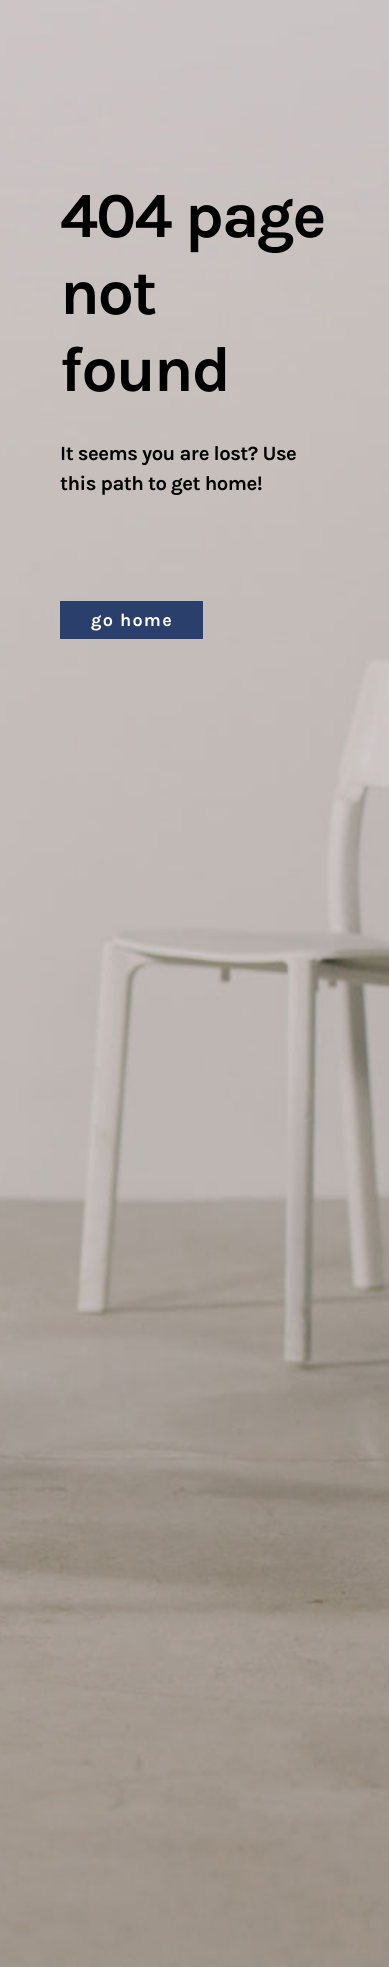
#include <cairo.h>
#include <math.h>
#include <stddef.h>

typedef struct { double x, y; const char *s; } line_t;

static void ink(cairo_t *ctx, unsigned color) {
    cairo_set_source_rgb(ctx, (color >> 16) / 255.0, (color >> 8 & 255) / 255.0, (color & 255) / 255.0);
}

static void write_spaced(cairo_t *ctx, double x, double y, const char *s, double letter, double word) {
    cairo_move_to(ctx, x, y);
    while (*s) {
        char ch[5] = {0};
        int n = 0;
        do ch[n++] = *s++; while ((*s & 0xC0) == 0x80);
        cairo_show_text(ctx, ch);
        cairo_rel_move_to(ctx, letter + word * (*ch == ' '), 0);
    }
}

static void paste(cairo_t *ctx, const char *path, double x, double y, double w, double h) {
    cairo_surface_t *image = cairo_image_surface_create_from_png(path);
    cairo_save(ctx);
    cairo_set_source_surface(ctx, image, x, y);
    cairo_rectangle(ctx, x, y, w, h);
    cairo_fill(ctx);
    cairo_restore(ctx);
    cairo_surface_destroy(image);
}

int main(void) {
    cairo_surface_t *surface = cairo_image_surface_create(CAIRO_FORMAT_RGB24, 389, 1967);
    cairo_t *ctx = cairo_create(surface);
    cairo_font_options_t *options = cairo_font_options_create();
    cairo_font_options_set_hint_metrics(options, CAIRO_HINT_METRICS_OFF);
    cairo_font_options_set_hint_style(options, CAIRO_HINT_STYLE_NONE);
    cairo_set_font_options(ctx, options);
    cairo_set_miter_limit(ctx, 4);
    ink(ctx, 0xFFFFFF);
    cairo_paint(ctx);
    paste(ctx, "media/1.png", 0, 0, 389, 1967);
    cairo_select_font_face(ctx, "Karla", CAIRO_FONT_SLANT_NORMAL, CAIRO_FONT_WEIGHT_BOLD);
    cairo_set_font_size(ctx, 64);
    ink(ctx, 0x000000);
    {
        static const line_t items[] = {
            {60, 237, "404 page"},
            {60, 314, "not"},
            {60, 391, "found"},
        };
        for (size_t i = 0; i < sizeof items / sizeof *items; i++) {
            write_spaced(ctx, items[i].x, items[i].y, items[i].s, -2, 0);
        }
    }
    cairo_set_font_size(ctx, 20.25);
    write_spaced(ctx, 60, 460, "It seems you are lost? Use", -0.5, 0);
    write_spaced(ctx, 60, 490, "this path to get home!", -0.5, 0);
    ink(ctx, 0x2A3F6C);
    cairo_rectangle(ctx, 60, 601, 143, 38);
    cairo_fill(ctx);
    cairo_set_font_size(ctx, 18);
    ink(ctx, 0xFFFFFF);
    write_spaced(ctx, 91, 626, "go home", 1.25, 0);
    cairo_surface_write_to_png(surface, "image.png");
    cairo_font_options_destroy(options);
    cairo_destroy(ctx);
    cairo_surface_destroy(surface);
    return 0;
}
